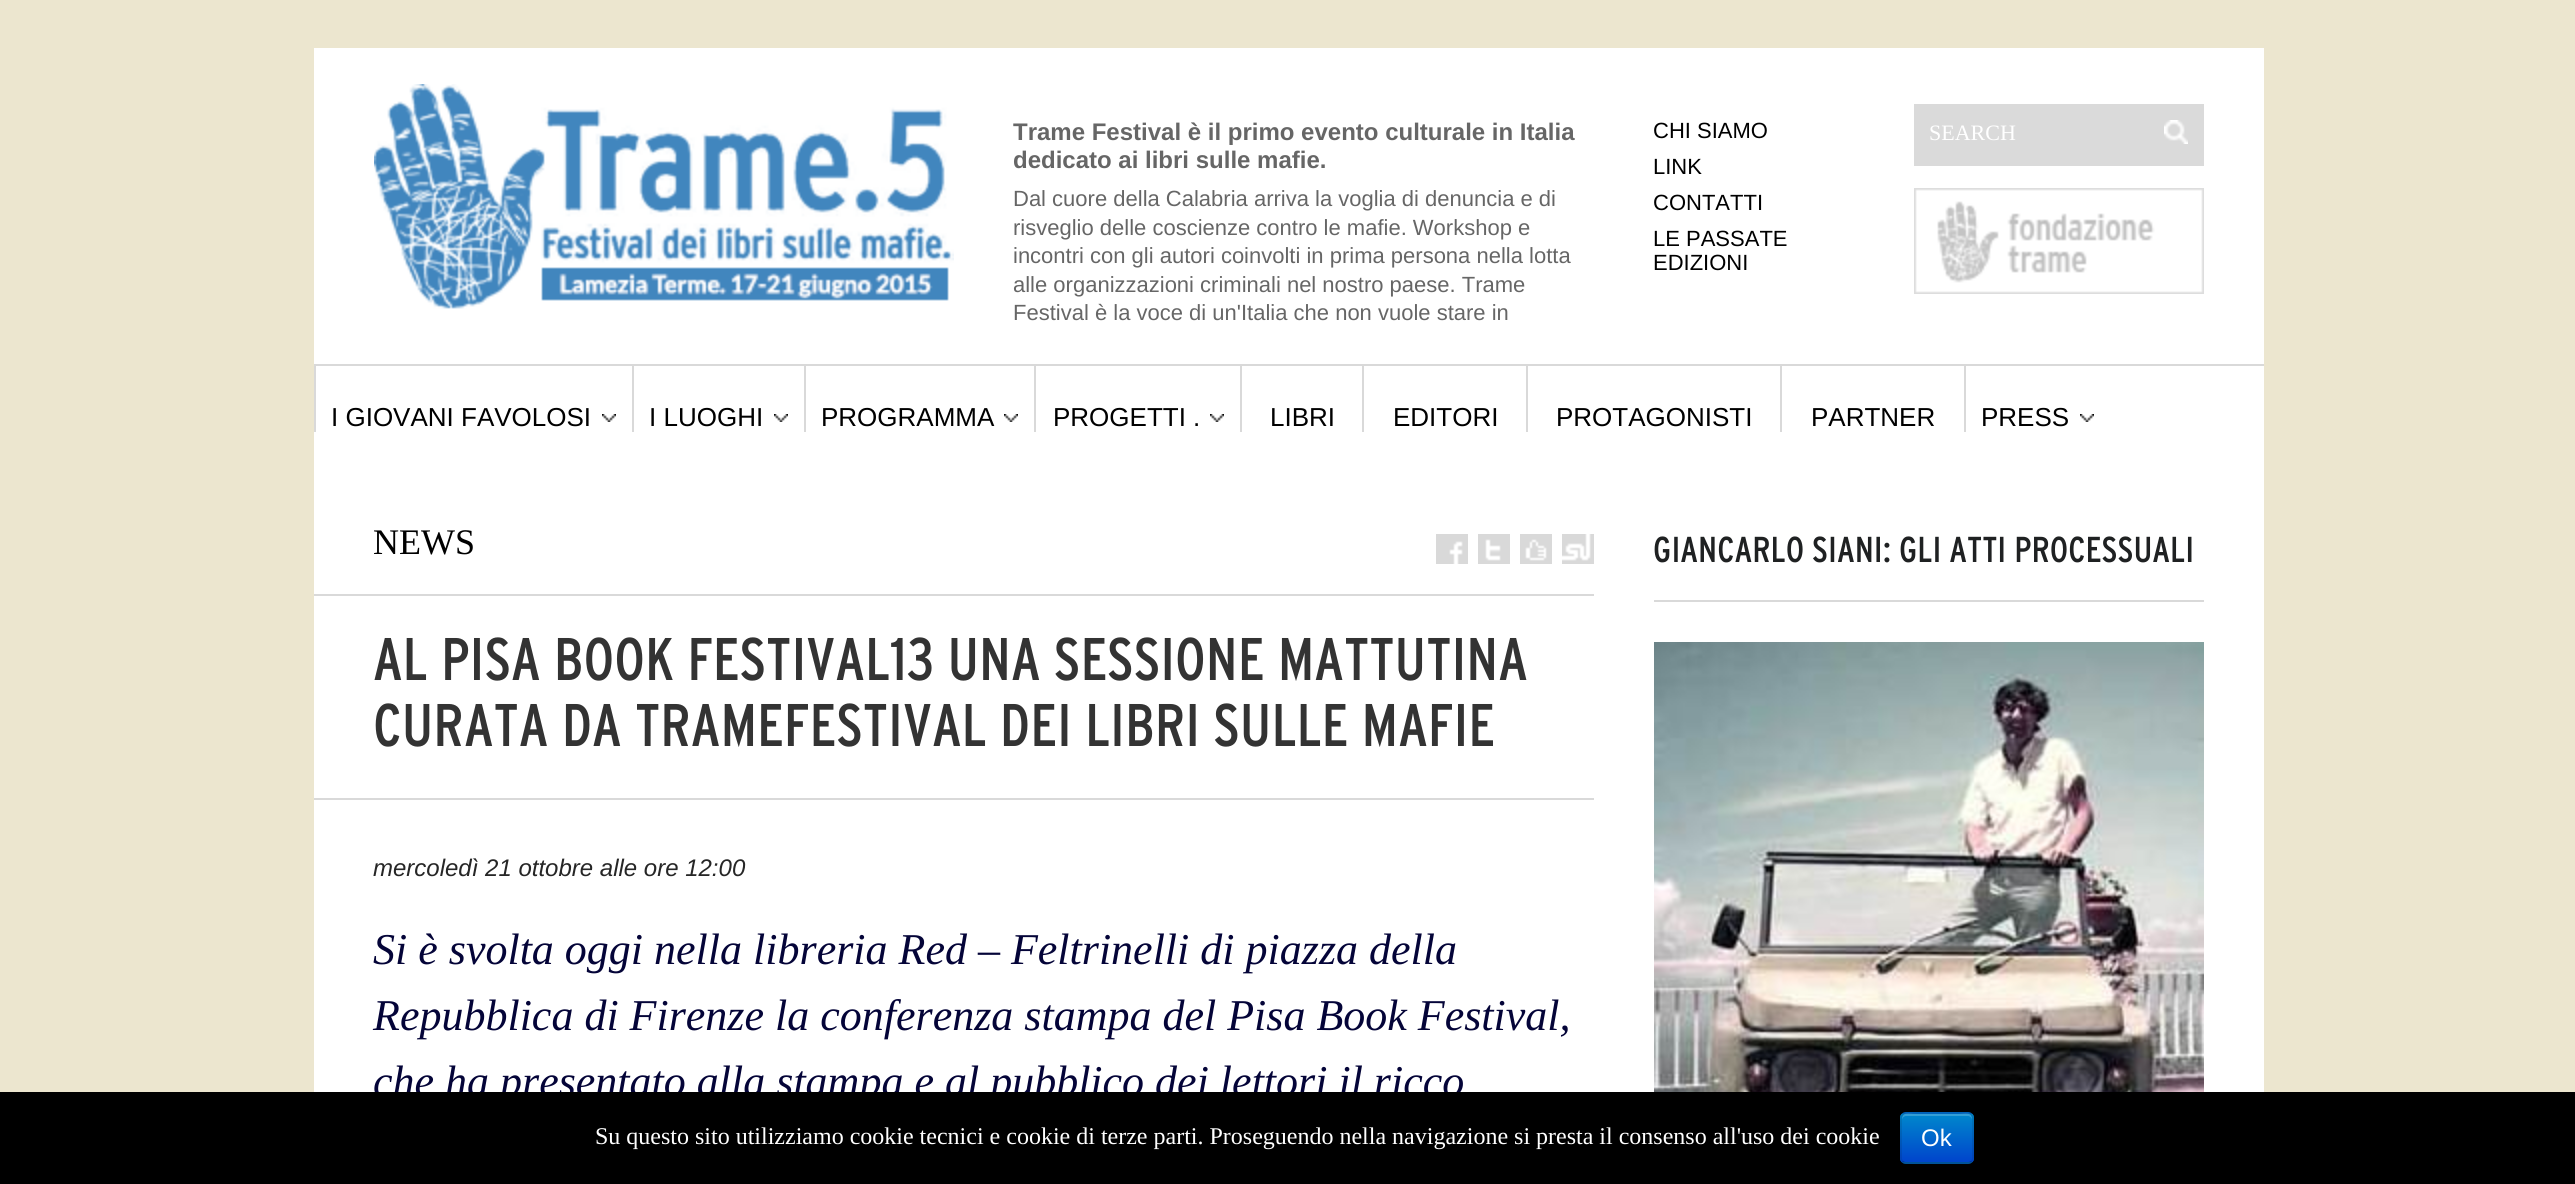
#include <cairo.h>
#include <math.h>
#include <stddef.h>

typedef struct { double x, y; const char *s; } line_t;

static void ink(cairo_t *ctx, unsigned color) {
    cairo_set_source_rgb(ctx, (color >> 16) / 255.0, (color >> 8 & 255) / 255.0, (color & 255) / 255.0);
}

static void round_path(cairo_t *ctx, double x, double y, double w, double h, double r) {
    cairo_new_sub_path(ctx);
    cairo_arc(ctx, x + w - r, y + h - r, r, 0, M_PI / 2);
    cairo_arc(ctx, x + r, y + h - r, r, M_PI / 2, M_PI);
    cairo_arc(ctx, x + r, y + r, r, M_PI, 1.5 * M_PI);
    cairo_arc(ctx, x + w - r, y + r, r, 1.5 * M_PI, 2 * M_PI);
    cairo_close_path(ctx);
}

static void paste(cairo_t *ctx, const char *path, double x, double y, double w, double h) {
    cairo_surface_t *image = cairo_image_surface_create_from_png(path);
    cairo_save(ctx);
    cairo_set_source_surface(ctx, image, x, y);
    cairo_rectangle(ctx, x, y, w, h);
    cairo_fill(ctx);
    cairo_restore(ctx);
    cairo_surface_destroy(image);
}

int main(void) {
    cairo_surface_t *surface = cairo_image_surface_create(CAIRO_FORMAT_RGB24, 2575, 1184);
    cairo_t *ctx = cairo_create(surface);
    cairo_font_options_t *options = cairo_font_options_create();
    cairo_font_options_set_hint_metrics(options, CAIRO_HINT_METRICS_OFF);
    cairo_font_options_set_hint_style(options, CAIRO_HINT_STYLE_NONE);
    cairo_set_font_options(ctx, options);
    cairo_set_miter_limit(ctx, 4);
    cairo_pattern_t *gradient;
    ink(ctx, 0xECE6CF);
    cairo_paint(ctx);
    ink(ctx, 0xFFFFFF);
    cairo_rectangle(ctx, 314, 48, 1950, 1044);
    cairo_fill(ctx);
    paste(ctx, "media/1.png", 374, 84, 580, 225);
    cairo_select_font_face(ctx, "Liberation Sans", CAIRO_FONT_SLANT_NORMAL, CAIRO_FONT_WEIGHT_BOLD);
    cairo_set_font_size(ctx, 24);
    ink(ctx, 0x666666);
    cairo_move_to(ctx, 1013, 140);
    cairo_show_text(ctx, "Trame Festival è il primo evento culturale in Italia");
    cairo_move_to(ctx, 1013, 168);
    cairo_show_text(ctx, "dedicato ai libri sulle mafie.");
    cairo_select_font_face(ctx, "Liberation Sans", CAIRO_FONT_SLANT_NORMAL, CAIRO_FONT_WEIGHT_NORMAL);
    cairo_set_font_size(ctx, 22);
    {
        static const line_t items[] = {
            {1013, 206, "Dal cuore della Calabria arriva la voglia di denuncia e di"},
            {1013, 235, "risveglio delle coscienze contro le mafie. Workshop e"},
            {1013, 263, "incontri con gli autori coinvolti in prima persona nella lotta"},
            {1013, 292, "alle organizzazioni criminali nel nostro paese. Trame"},
            {1013, 320, "Festival è la voce di un'Italia che non vuole stare in"},
        };
        for (size_t i = 0; i < sizeof items / sizeof *items; i++) {
            cairo_move_to(ctx, items[i].x, items[i].y);
            cairo_show_text(ctx, items[i].s);
        }
    }
    ink(ctx, 0x000000);
    {
        static const line_t items[] = {
            {1653, 138, "CHI SIAMO"},
            {1653, 174, "LINK"},
            {1653, 210, "CONTATTI"},
            {1653, 246, "LE PASSATE"},
            {1653, 270, "EDIZIONI"},
        };
        for (size_t i = 0; i < sizeof items / sizeof *items; i++) {
            cairo_move_to(ctx, items[i].x, items[i].y);
            cairo_show_text(ctx, items[i].s);
        }
    }
    ink(ctx, 0xDADADA);
    cairo_rectangle(ctx, 1914, 104, 290, 62);
    cairo_fill(ctx);
    cairo_select_font_face(ctx, "Liberation Serif", CAIRO_FONT_SLANT_NORMAL, CAIRO_FONT_WEIGHT_NORMAL);
    ink(ctx, 0xFFFFFF);
    cairo_move_to(ctx, 1929, 140);
    cairo_show_text(ctx, "SEARCH");
    paste(ctx, "media/2.png", 2164, 120, 24, 24);
    paste(ctx, "media/3.png", 1914, 188, 290, 106);
    ink(ctx, 0xD9D9D9);
    cairo_rectangle(ctx, 314, 364, 1950, 2);
    cairo_fill(ctx);
    cairo_rectangle(ctx, 314, 366, 2, 66);
    cairo_fill(ctx);
    paste(ctx, "media/4.png", 602, 414, 14, 8);
    cairo_select_font_face(ctx, "Liberation Sans", CAIRO_FONT_SLANT_NORMAL, CAIRO_FONT_WEIGHT_NORMAL);
    cairo_set_font_size(ctx, 26);
    ink(ctx, 0x000000);
    cairo_move_to(ctx, 331, 426);
    cairo_show_text(ctx, "I GIOVANI FAVOLOSI");
    ink(ctx, 0xD9D9D9);
    cairo_rectangle(ctx, 632, 366, 2, 66);
    cairo_fill(ctx);
    paste(ctx, "media/4.png", 774, 414, 14, 8);
    ink(ctx, 0x000000);
    cairo_move_to(ctx, 649, 426);
    cairo_show_text(ctx, "I LUOGHI");
    ink(ctx, 0xD9D9D9);
    cairo_rectangle(ctx, 804, 366, 2, 66);
    cairo_fill(ctx);
    paste(ctx, "media/4.png", 1004, 414, 14, 8);
    ink(ctx, 0x000000);
    cairo_move_to(ctx, 821, 426);
    cairo_show_text(ctx, "PROGRAMMA");
    ink(ctx, 0xD9D9D9);
    cairo_rectangle(ctx, 1034, 366, 2, 66);
    cairo_fill(ctx);
    paste(ctx, "media/4.png", 1210, 414, 14, 8);
    ink(ctx, 0x000000);
    cairo_move_to(ctx, 1053, 426);
    cairo_show_text(ctx, "PROGETTI .");
    ink(ctx, 0xD9D9D9);
    cairo_rectangle(ctx, 1240, 366, 2, 66);
    cairo_fill(ctx);
    ink(ctx, 0x000000);
    cairo_move_to(ctx, 1270, 426);
    cairo_show_text(ctx, "LIBRI");
    ink(ctx, 0xD9D9D9);
    cairo_rectangle(ctx, 1362, 366, 2, 66);
    cairo_fill(ctx);
    ink(ctx, 0x000000);
    cairo_move_to(ctx, 1393, 426);
    cairo_show_text(ctx, "EDITORI");
    ink(ctx, 0xD9D9D9);
    cairo_rectangle(ctx, 1526, 366, 2, 66);
    cairo_fill(ctx);
    ink(ctx, 0x000000);
    cairo_move_to(ctx, 1556, 426);
    cairo_show_text(ctx, "PROTAGONISTI");
    ink(ctx, 0xD9D9D9);
    cairo_rectangle(ctx, 1780, 366, 2, 66);
    cairo_fill(ctx);
    ink(ctx, 0x000000);
    cairo_move_to(ctx, 1811, 426);
    cairo_show_text(ctx, "PARTNER");
    ink(ctx, 0xD9D9D9);
    cairo_rectangle(ctx, 1964, 366, 2, 66);
    cairo_fill(ctx);
    paste(ctx, "media/4.png", 2080, 414, 14, 8);
    ink(ctx, 0x000000);
    cairo_move_to(ctx, 1981, 426);
    cairo_show_text(ctx, "PRESS");
    ink(ctx, 0xD9D9D9);
    cairo_rectangle(ctx, 314, 594, 1280, 2);
    cairo_fill(ctx);
    cairo_select_font_face(ctx, "Liberation Serif", CAIRO_FONT_SLANT_NORMAL, CAIRO_FONT_WEIGHT_NORMAL);
    cairo_set_font_size(ctx, 36);
    ink(ctx, 0x000000);
    cairo_move_to(ctx, 373, 554);
    cairo_show_text(ctx, "NEWS");
    paste(ctx, "media/5.png", 1436, 534, 32, 30);
    paste(ctx, "media/6.png", 1478, 534, 32, 30);
    paste(ctx, "media/7.png", 1520, 534, 32, 30);
    paste(ctx, "media/8.png", 1562, 534, 32, 30);
    ink(ctx, 0xD9D9D9);
    cairo_rectangle(ctx, 314, 798, 1280, 2);
    cairo_fill(ctx);
    cairo_select_font_face(ctx, "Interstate", CAIRO_FONT_SLANT_NORMAL, CAIRO_FONT_WEIGHT_NORMAL);
    cairo_set_font_size(ctx, 60);
    ink(ctx, 0x333333);
    cairo_move_to(ctx, 373, 680);
    cairo_show_text(ctx, "AL PISA BOOK FESTIVAL13 UNA SESSIONE MATTUTINA");
    cairo_move_to(ctx, 373, 746);
    cairo_show_text(ctx, "CURATA DA TRAMEFESTIVAL DEI LIBRI SULLE MAFIE");
    cairo_select_font_face(ctx, "Liberation Sans", CAIRO_FONT_SLANT_ITALIC, CAIRO_FONT_WEIGHT_NORMAL);
    cairo_set_font_size(ctx, 24);
    ink(ctx, 0x262626);
    cairo_move_to(ctx, 373, 876);
    cairo_show_text(ctx, "mercoledì 21 ottobre alle ore 12:00");
    cairo_select_font_face(ctx, "Liberation Serif", CAIRO_FONT_SLANT_ITALIC, CAIRO_FONT_WEIGHT_NORMAL);
    cairo_set_font_size(ctx, 44);
    ink(ctx, 0x040438);
    {
        static const line_t items[] = {
            {373, 964, "Si è svolta oggi nella libreria Red – Feltrinelli di piazza della"},
            {373, 1030, "Repubblica di Firenze la conferenza stampa del Pisa Book Festival,"},
            {373, 1096, "che ha presentato alla stampa e al pubblico dei lettori il ricco"},
        };
        for (size_t i = 0; i < sizeof items / sizeof *items; i++) {
            cairo_move_to(ctx, items[i].x, items[i].y);
            cairo_show_text(ctx, items[i].s);
        }
    }
    ink(ctx, 0xD9D9D9);
    cairo_rectangle(ctx, 1654, 600, 550, 2);
    cairo_fill(ctx);
    cairo_select_font_face(ctx, "Interstate", CAIRO_FONT_SLANT_NORMAL, CAIRO_FONT_WEIGHT_NORMAL);
    cairo_set_font_size(ctx, 36);
    ink(ctx, 0x1F2122);
    cairo_move_to(ctx, 1653, 562);
    cairo_show_text(ctx, "GIANCARLO SIANI: GLI ATTI PROCESSUALI");
    paste(ctx, "media/9.png", 1654, 642, 550, 450);
    ink(ctx, 0x000000);
    cairo_rectangle(ctx, 0, 1092, 2575, 92);
    cairo_fill(ctx);
    cairo_select_font_face(ctx, "Liberation Serif", CAIRO_FONT_SLANT_NORMAL, CAIRO_FONT_WEIGHT_NORMAL);
    cairo_set_font_size(ctx, 24);
    ink(ctx, 0xFFFFFF);
    cairo_move_to(ctx, 595, 1144);
    cairo_show_text(ctx, "Su questo sito utilizziamo cookie tecnici e cookie di terze parti. Proseguendo nella navigazione si presta il consenso all'uso dei cookie");
    ink(ctx, 0x006DCC);
    round_path(ctx, 1900, 1112, 74, 52, 6);
    cairo_fill(ctx);
    cairo_save(ctx);
    round_path(ctx, 1900, 1112, 74, 52, 6);
    cairo_clip(ctx);
    gradient = cairo_pattern_create_linear(1937, 1114, 1937, 1162);
    cairo_pattern_add_color_stop_rgba(gradient, 0, 0, 0.533, 0.8, 1);
    cairo_pattern_add_color_stop_rgba(gradient, 1, 0, 0.267, 0.8, 1);
    cairo_set_source(ctx, gradient);
    cairo_pattern_destroy(gradient);
    cairo_rectangle(ctx, 1900, 1114, 74, 48);
    cairo_fill(ctx);
    cairo_restore(ctx);
    cairo_set_source_rgba(ctx, 1, 1, 1, 0.2);
    cairo_new_path(ctx);
    cairo_move_to(ctx, 1906, 1116);
    cairo_line_to(ctx, 1968, 1116);
    cairo_curve_to(ctx, 1970, 1116, 1972, 1118, 1972, 1120);
    cairo_curve_to(ctx, 1972, 1111, 1965, 1114, 1958, 1114);
    cairo_line_to(ctx, 1916, 1114);
    cairo_curve_to(ctx, 1909, 1114, 1902, 1111, 1902, 1120);
    cairo_curve_to(ctx, 1902, 1118, 1904, 1116, 1906, 1116);
    cairo_close_path(ctx);
    cairo_fill(ctx);
    cairo_new_path(ctx);
    cairo_move_to(ctx, 1971.5, 1161.5);
    cairo_curve_to(ctx, 1970.5, 1162.5, 1969.5, 1163, 1968, 1163);
    cairo_line_to(ctx, 1906, 1163);
    cairo_curve_to(ctx, 1904.5, 1163, 1903.5, 1162.5, 1902.5, 1161.5);
    cairo_set_source_rgba(ctx, 0, 0, 0, 0.25);
    cairo_stroke(ctx);
    cairo_new_path(ctx);
    cairo_move_to(ctx, 1902.5, 1161.5);
    cairo_curve_to(ctx, 1901.5, 1160.5, 1901, 1159.5, 1901, 1158);
    cairo_line_to(ctx, 1901, 1118);
    cairo_curve_to(ctx, 1901, 1116.5, 1901.5, 1115.5, 1902.5, 1114.5);
    cairo_curve_to(ctx, 1903.5, 1113.5, 1904.5, 1113, 1906, 1113);
    cairo_line_to(ctx, 1968, 1113);
    cairo_curve_to(ctx, 1969.5, 1113, 1970.5, 1113.5, 1971.5, 1114.5);
    cairo_curve_to(ctx, 1972.5, 1115.5, 1973, 1116.5, 1973, 1118);
    cairo_line_to(ctx, 1973, 1158);
    cairo_curve_to(ctx, 1973, 1159.5, 1972.5, 1160.5, 1971.5, 1161.5);
    cairo_set_source_rgba(ctx, 0, 0, 0, 0.1);
    cairo_stroke(ctx);
    cairo_select_font_face(ctx, "Liberation Sans", CAIRO_FONT_SLANT_NORMAL, CAIRO_FONT_WEIGHT_NORMAL);
    ink(ctx, 0xFFFFFF);
    cairo_move_to(ctx, 1921, 1146);
    cairo_show_text(ctx, "Ok");
    cairo_surface_write_to_png(surface, "image.png");
    cairo_font_options_destroy(options);
    cairo_destroy(ctx);
    cairo_surface_destroy(surface);
    return 0;
}
